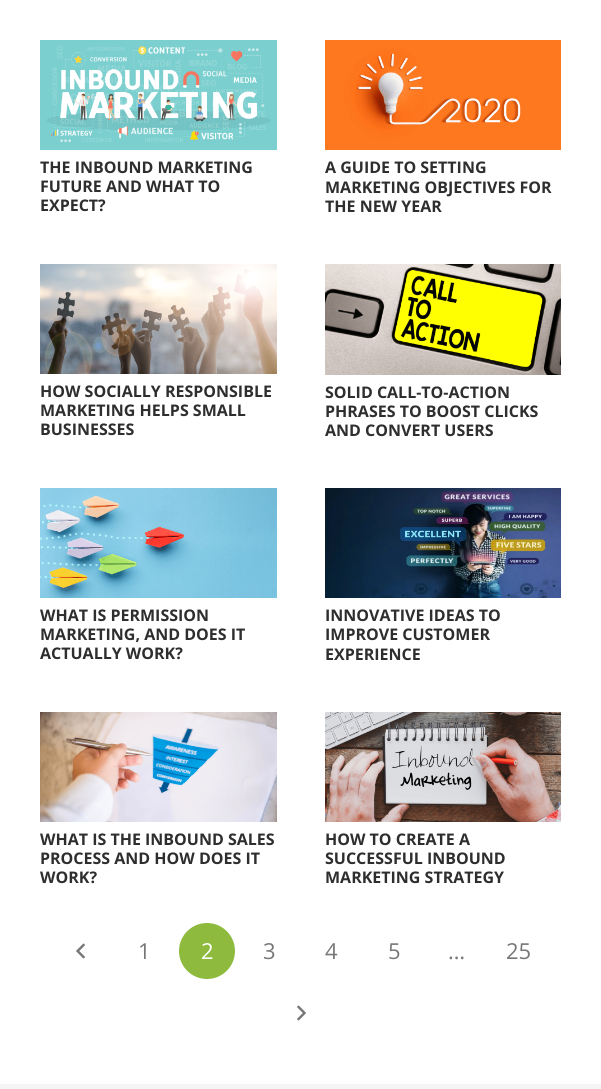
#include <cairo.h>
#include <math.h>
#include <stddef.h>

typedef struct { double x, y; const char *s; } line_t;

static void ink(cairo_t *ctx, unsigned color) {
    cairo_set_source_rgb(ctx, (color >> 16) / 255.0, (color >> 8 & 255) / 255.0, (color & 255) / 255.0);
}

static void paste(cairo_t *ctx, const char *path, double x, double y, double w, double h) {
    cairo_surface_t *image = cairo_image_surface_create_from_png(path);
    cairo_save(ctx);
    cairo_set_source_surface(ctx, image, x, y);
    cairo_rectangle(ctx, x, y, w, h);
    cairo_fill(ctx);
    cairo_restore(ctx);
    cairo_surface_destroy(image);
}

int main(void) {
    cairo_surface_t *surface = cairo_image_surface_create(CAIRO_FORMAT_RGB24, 601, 1089);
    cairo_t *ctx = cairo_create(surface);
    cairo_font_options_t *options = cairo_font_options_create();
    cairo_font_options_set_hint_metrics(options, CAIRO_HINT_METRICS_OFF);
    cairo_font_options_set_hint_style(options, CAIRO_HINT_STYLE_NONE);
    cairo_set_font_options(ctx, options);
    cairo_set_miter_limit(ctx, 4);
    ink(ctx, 0xF5F5F5);
    cairo_paint(ctx);
    ink(ctx, 0xFFFFFF);
    cairo_rectangle(ctx, 0, 0, 601, 1084);
    cairo_fill(ctx);
    paste(ctx, "media/1.png", 40, 40, 237, 110);
    cairo_select_font_face(ctx, "Open Sans", CAIRO_FONT_SLANT_NORMAL, CAIRO_FONT_WEIGHT_BOLD);
    cairo_set_font_size(ctx, 16);
    ink(ctx, 0x2E2E2E);
    {
        static const line_t items[] = {
            {40, 173, "THE INBOUND MARKETING"},
            {40, 192, "FUTURE AND WHAT TO"},
            {40, 211, "EXPECT?"},
        };
        for (size_t i = 0; i < sizeof items / sizeof *items; i++) {
            cairo_move_to(ctx, items[i].x, items[i].y);
            cairo_show_text(ctx, items[i].s);
        }
    }
    paste(ctx, "media/2.png", 325, 40, 236, 110);
    {
        static const line_t items[] = {
            {325, 173, "A GUIDE TO SETTING"},
            {325, 193, "MARKETING OBJECTIVES FOR"},
            {325, 212, "THE NEW YEAR"},
        };
        for (size_t i = 0; i < sizeof items / sizeof *items; i++) {
            cairo_move_to(ctx, items[i].x, items[i].y);
            cairo_show_text(ctx, items[i].s);
        }
    }
    paste(ctx, "media/3.png", 40, 264, 237, 110);
    {
        static const line_t items[] = {
            {40, 397, "HOW SOCIALLY RESPONSIBLE"},
            {40, 416, "MARKETING HELPS SMALL"},
            {40, 435, "BUSINESSES"},
        };
        for (size_t i = 0; i < sizeof items / sizeof *items; i++) {
            cairo_move_to(ctx, items[i].x, items[i].y);
            cairo_show_text(ctx, items[i].s);
        }
    }
    paste(ctx, "media/4.png", 325, 264, 236, 111);
    {
        static const line_t items[] = {
            {325, 398, "SOLID CALL-TO-ACTION"},
            {325, 417, "PHRASES TO BOOST CLICKS"},
            {325, 436, "AND CONVERT USERS"},
        };
        for (size_t i = 0; i < sizeof items / sizeof *items; i++) {
            cairo_move_to(ctx, items[i].x, items[i].y);
            cairo_show_text(ctx, items[i].s);
        }
    }
    paste(ctx, "media/5.png", 40, 488, 237, 110);
    {
        static const line_t items[] = {
            {40, 621, "WHAT IS PERMISSION"},
            {40, 640, "MARKETING, AND DOES IT"},
            {40, 659, "ACTUALLY WORK?"},
        };
        for (size_t i = 0; i < sizeof items / sizeof *items; i++) {
            cairo_move_to(ctx, items[i].x, items[i].y);
            cairo_show_text(ctx, items[i].s);
        }
    }
    paste(ctx, "media/6.png", 325, 488, 236, 110);
    {
        static const line_t items[] = {
            {325, 621, "INNOVATIVE IDEAS TO"},
            {325, 640, "IMPROVE CUSTOMER"},
            {325, 660, "EXPERIENCE"},
        };
        for (size_t i = 0; i < sizeof items / sizeof *items; i++) {
            cairo_move_to(ctx, items[i].x, items[i].y);
            cairo_show_text(ctx, items[i].s);
        }
    }
    paste(ctx, "media/7.png", 40, 712, 237, 110);
    {
        static const line_t items[] = {
            {40, 845, "WHAT IS THE INBOUND SALES"},
            {40, 864, "PROCESS AND HOW DOES IT"},
            {40, 883, "WORK?"},
        };
        for (size_t i = 0; i < sizeof items / sizeof *items; i++) {
            cairo_move_to(ctx, items[i].x, items[i].y);
            cairo_show_text(ctx, items[i].s);
        }
    }
    paste(ctx, "media/8.png", 325, 712, 236, 110);
    {
        static const line_t items[] = {
            {325, 845, "HOW TO CREATE A"},
            {325, 864, "SUCCESSFUL INBOUND"},
            {325, 883, "MARKETING STRATEGY"},
        };
        for (size_t i = 0; i < sizeof items / sizeof *items; i++) {
            cairo_move_to(ctx, items[i].x, items[i].y);
            cairo_show_text(ctx, items[i].s);
        }
    }
    paste(ctx, "media/9.png", 76, 943, 9, 16);
    cairo_select_font_face(ctx, "Open Sans", CAIRO_FONT_SLANT_NORMAL, CAIRO_FONT_WEIGHT_NORMAL);
    cairo_set_font_size(ctx, 22);
    ink(ctx, 0x777777);
    cairo_move_to(ctx, 138, 959);
    cairo_show_text(ctx, "1");
    ink(ctx, 0x8EBA3E);
    cairo_new_path(ctx);
    cairo_arc(ctx, 207, 951, 28, 0, 2 * M_PI);
    cairo_fill(ctx);
    ink(ctx, 0xFFFFFF);
    cairo_move_to(ctx, 201, 959);
    cairo_show_text(ctx, "2");
    ink(ctx, 0x777777);
    {
        static const line_t items[] = {
            {263, 959, "3"},
            {325, 959, "4"},
            {388, 959, "5"},
            {448, 959, "…"},
            {506, 959, "25"},
        };
        for (size_t i = 0; i < sizeof items / sizeof *items; i++) {
            cairo_move_to(ctx, items[i].x, items[i].y);
            cairo_show_text(ctx, items[i].s);
        }
    }
    paste(ctx, "media/10.png", 297, 1005, 9, 16);
    cairo_surface_write_to_png(surface, "image.png");
    cairo_font_options_destroy(options);
    cairo_destroy(ctx);
    cairo_surface_destroy(surface);
    return 0;
}
